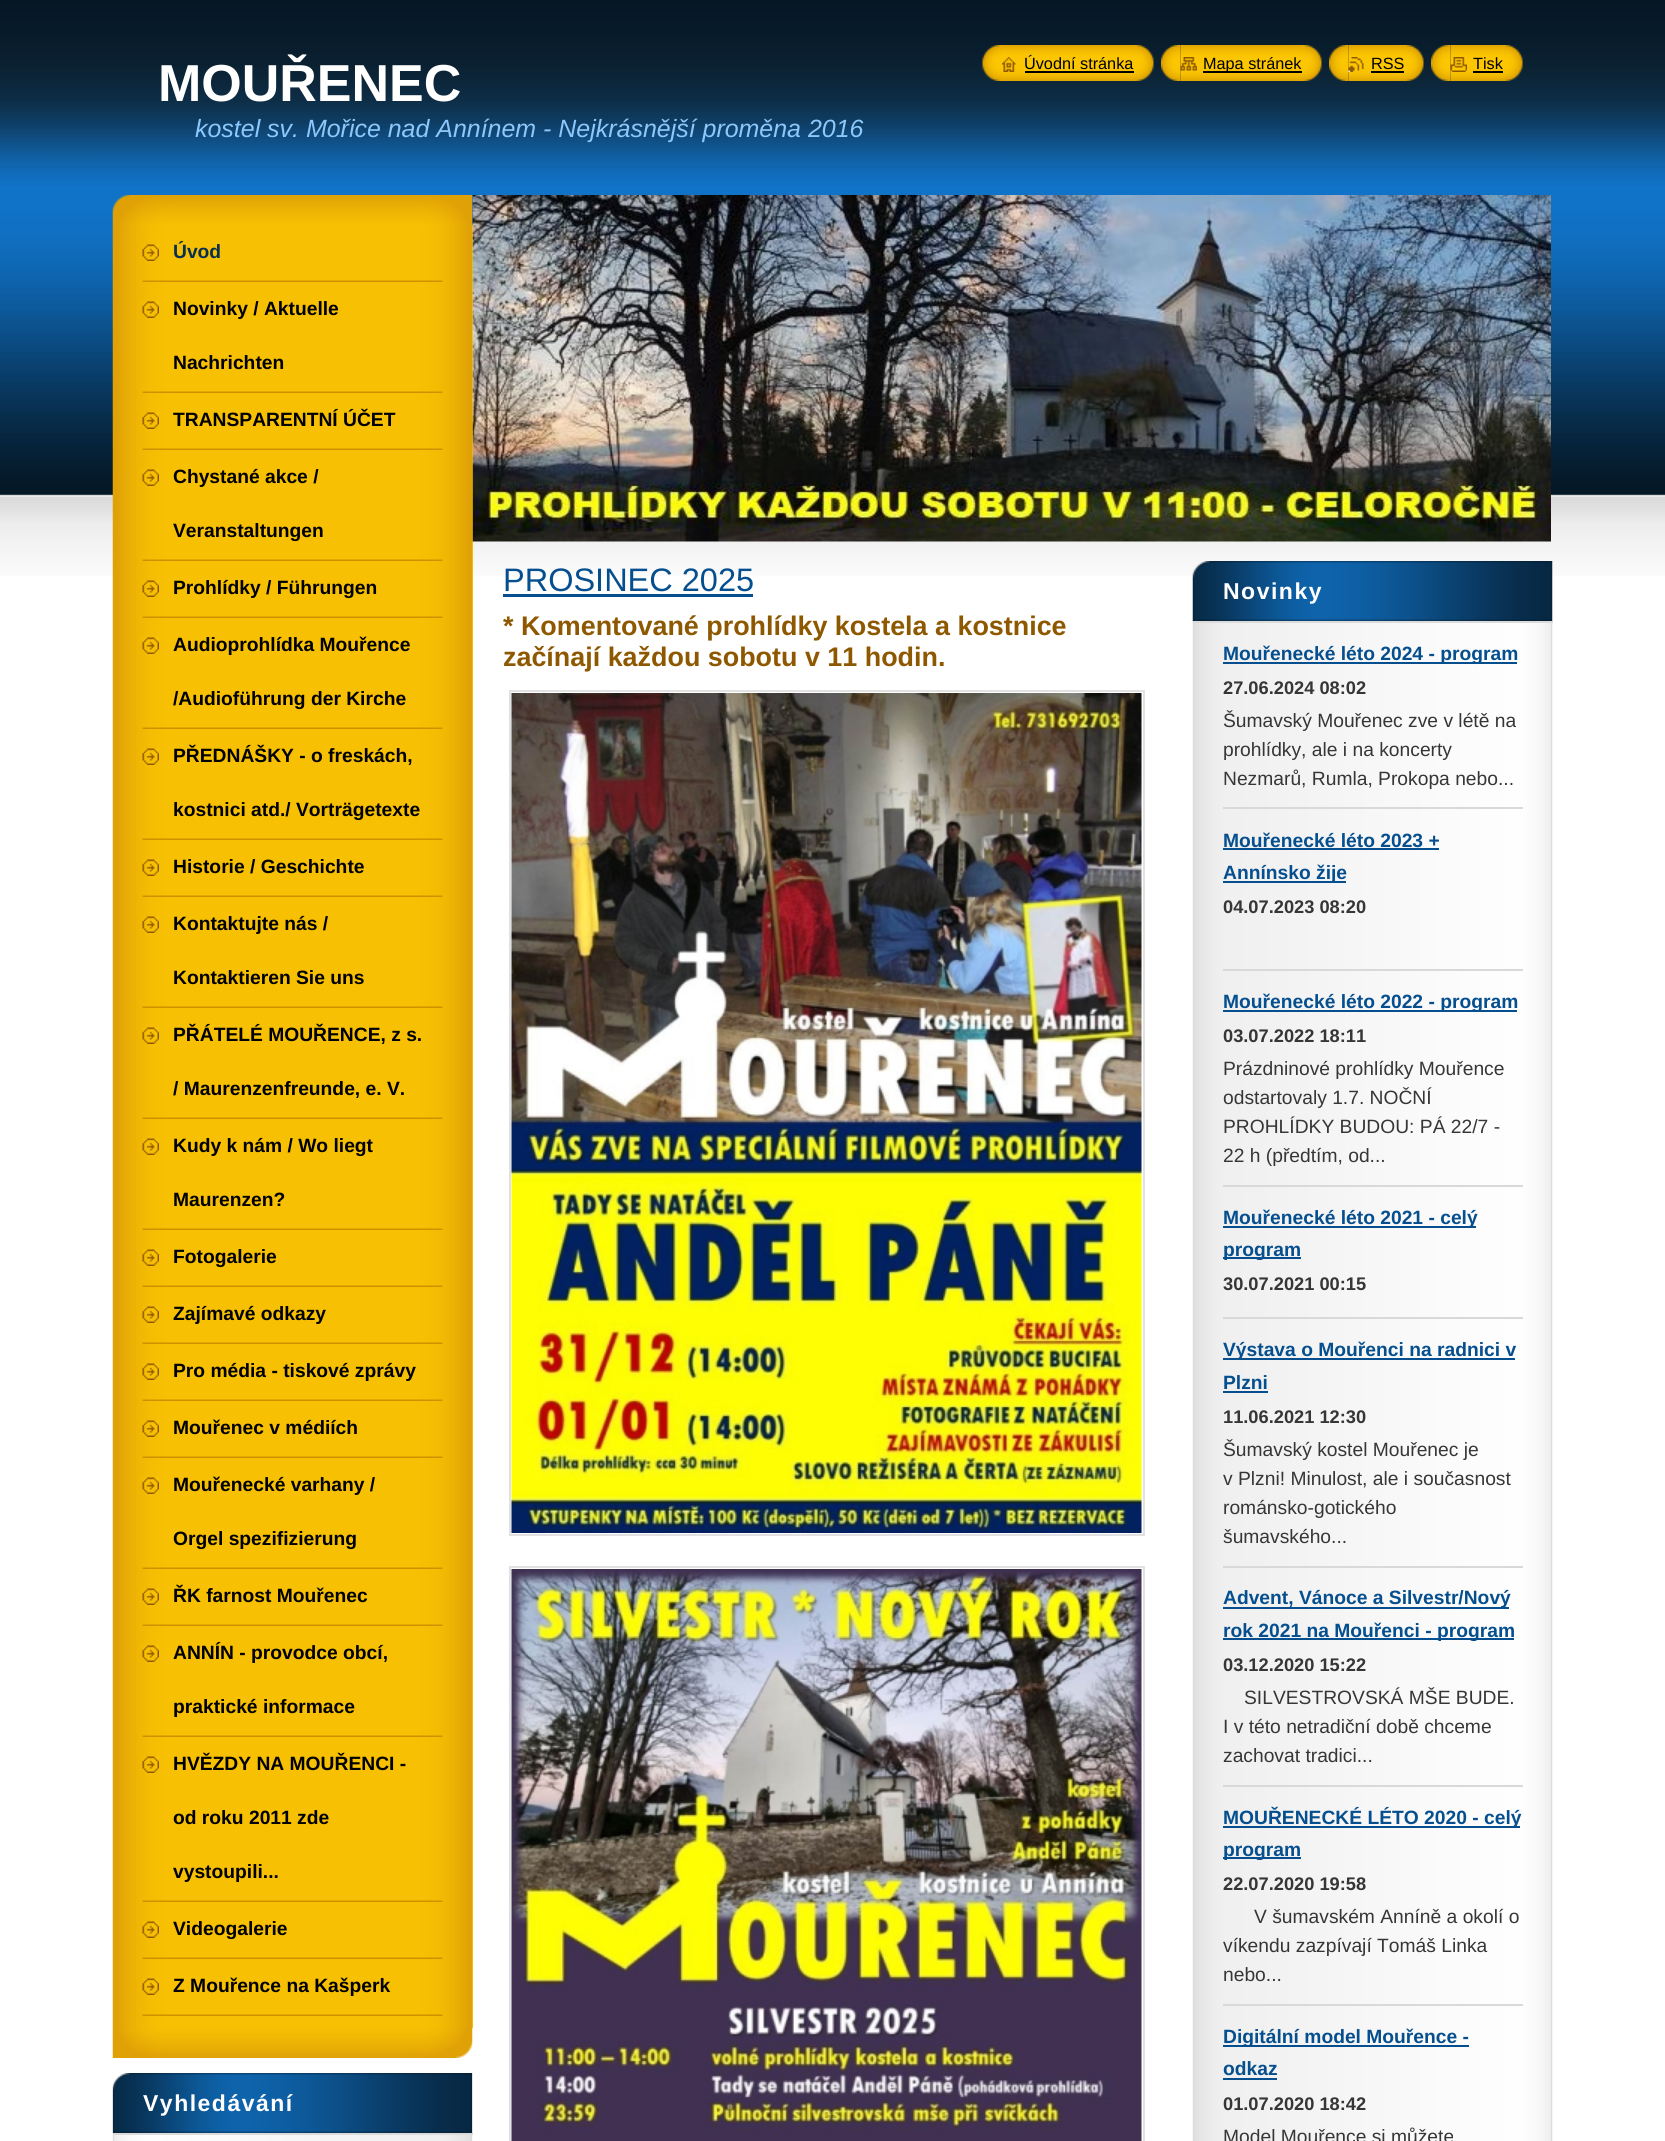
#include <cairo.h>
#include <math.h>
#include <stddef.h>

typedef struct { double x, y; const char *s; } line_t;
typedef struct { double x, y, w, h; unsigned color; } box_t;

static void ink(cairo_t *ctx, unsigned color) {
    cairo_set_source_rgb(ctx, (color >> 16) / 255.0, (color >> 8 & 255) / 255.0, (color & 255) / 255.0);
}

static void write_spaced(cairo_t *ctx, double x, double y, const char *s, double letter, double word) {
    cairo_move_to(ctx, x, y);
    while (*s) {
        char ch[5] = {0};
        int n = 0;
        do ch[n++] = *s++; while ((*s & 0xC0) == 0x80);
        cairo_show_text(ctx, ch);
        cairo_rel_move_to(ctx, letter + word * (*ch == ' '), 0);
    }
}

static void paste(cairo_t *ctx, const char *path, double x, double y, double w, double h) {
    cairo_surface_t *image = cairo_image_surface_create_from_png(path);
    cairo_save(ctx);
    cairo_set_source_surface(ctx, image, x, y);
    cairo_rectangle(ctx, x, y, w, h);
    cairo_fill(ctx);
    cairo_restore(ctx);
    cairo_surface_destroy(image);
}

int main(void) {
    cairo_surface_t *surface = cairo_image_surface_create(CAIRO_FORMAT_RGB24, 1665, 2141);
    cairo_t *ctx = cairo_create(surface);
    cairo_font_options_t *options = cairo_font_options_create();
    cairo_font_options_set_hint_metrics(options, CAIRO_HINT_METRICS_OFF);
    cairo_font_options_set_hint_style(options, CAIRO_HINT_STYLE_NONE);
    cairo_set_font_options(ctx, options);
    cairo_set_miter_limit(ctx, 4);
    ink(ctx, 0xFFFFFF);
    cairo_paint(ctx);
    paste(ctx, "media/1.png", 0, 0, 1665, 576);
    cairo_select_font_face(ctx, "Liberation Sans", CAIRO_FONT_SLANT_NORMAL, CAIRO_FONT_WEIGHT_BOLD);
    cairo_set_font_size(ctx, 52);
    ink(ctx, 0xFFFFFF);
    cairo_move_to(ctx, 158, 101);
    cairo_show_text(ctx, "MOUŘENEC");
    cairo_select_font_face(ctx, "Liberation Sans", CAIRO_FONT_SLANT_ITALIC, CAIRO_FONT_WEIGHT_NORMAL);
    cairo_set_font_size(ctx, 24.95);
    ink(ctx, 0x8CC8FB);
    cairo_move_to(ctx, 195, 137);
    cairo_show_text(ctx, "kostel sv. Mořice nad Annínem - Nejkrásnější proměna 2016");
    paste(ctx, "media/2.png", 982, 45, 20, 36);
    paste(ctx, "media/3.png", 1002, 45, 152, 36);
    paste(ctx, "media/4.png", 1002, 57, 14, 15);
    cairo_select_font_face(ctx, "Liberation Sans", CAIRO_FONT_SLANT_NORMAL, CAIRO_FONT_WEIGHT_NORMAL);
    cairo_set_font_size(ctx, 16.25);
    ink(ctx, 0x000000);
    cairo_move_to(ctx, 1024, 69);
    cairo_show_text(ctx, "Úvodní stránka");
    cairo_rectangle(ctx, 1025, 71, 109, 2);
    cairo_fill(ctx);
    paste(ctx, "media/5.png", 1161, 45, 20, 36);
    paste(ctx, "media/6.png", 1180, 45, 142, 36);
    paste(ctx, "media/7.png", 1180, 57, 17, 14);
    cairo_rectangle(ctx, 1203, 71, 99, 2);
    cairo_fill(ctx);
    cairo_move_to(ctx, 1203, 69);
    cairo_show_text(ctx, "Mapa stránek");
    paste(ctx, "media/5.png", 1329, 45, 20, 36);
    paste(ctx, "media/8.png", 1348, 45, 76, 36);
    paste(ctx, "media/9.png", 1348, 57, 16, 15);
    cairo_move_to(ctx, 1371, 69);
    cairo_show_text(ctx, "RSS");
    cairo_rectangle(ctx, 1371, 71, 33, 2);
    cairo_fill(ctx);
    paste(ctx, "media/10.png", 1431, 45, 20, 36);
    paste(ctx, "media/11.png", 1450, 45, 73, 36);
    paste(ctx, "media/12.png", 1450, 57, 17, 15);
    cairo_move_to(ctx, 1473, 69);
    cairo_show_text(ctx, "Tisk");
    cairo_rectangle(ctx, 1473, 71, 30, 2);
    cairo_fill(ctx);
    paste(ctx, "media/13.png", 112, 195, 361, 30);
    paste(ctx, "media/14.png", 112, 2028, 361, 30);
    ink(ctx, 0xFCC602);
    cairo_rectangle(ctx, 472, 225, 1, 1803);
    cairo_fill(ctx);
    paste(ctx, "media/15.png", 112, 225, 361, 1803);
    paste(ctx, "media/16.png", 142, 280, 301, 2);
    paste(ctx, "media/17.png", 142, 244, 17, 17);
    cairo_select_font_face(ctx, "Liberation Sans", CAIRO_FONT_SLANT_NORMAL, CAIRO_FONT_WEIGHT_BOLD);
    cairo_set_font_size(ctx, 19.25);
    ink(ctx, 0x082F50);
    cairo_move_to(ctx, 173, 258);
    cairo_show_text(ctx, "Úvod");
    paste(ctx, "media/16.png", 142, 391, 301, 2);
    paste(ctx, "media/17.png", 142, 301, 17, 17);
    ink(ctx, 0x000000);
    cairo_move_to(ctx, 173, 315);
    cairo_show_text(ctx, "Novinky / Aktuelle");
    cairo_move_to(ctx, 173, 369);
    cairo_show_text(ctx, "Nachrichten");
    paste(ctx, "media/16.png", 142, 448, 301, 2);
    paste(ctx, "media/17.png", 142, 412, 17, 17);
    cairo_move_to(ctx, 173, 426);
    cairo_show_text(ctx, "TRANSPARENTNÍ ÚČET");
    paste(ctx, "media/16.png", 142, 559, 301, 2);
    paste(ctx, "media/17.png", 142, 469, 17, 17);
    cairo_move_to(ctx, 173, 483);
    cairo_show_text(ctx, "Chystané akce /");
    cairo_move_to(ctx, 173, 537);
    cairo_show_text(ctx, "Veranstaltungen");
    paste(ctx, "media/16.png", 142, 616, 301, 2);
    paste(ctx, "media/17.png", 142, 580, 17, 17);
    cairo_move_to(ctx, 173, 594);
    cairo_show_text(ctx, "Prohlídky / Führungen");
    paste(ctx, "media/16.png", 142, 727, 301, 2);
    paste(ctx, "media/17.png", 142, 637, 17, 17);
    cairo_move_to(ctx, 173, 651);
    cairo_show_text(ctx, "Audioprohlídka Mouřence");
    cairo_move_to(ctx, 173, 705);
    cairo_show_text(ctx, "/Audioführung der Kirche");
    paste(ctx, "media/16.png", 142, 838, 301, 2);
    paste(ctx, "media/17.png", 142, 748, 17, 17);
    cairo_move_to(ctx, 173, 762);
    cairo_show_text(ctx, "PŘEDNÁŠKY - o freskách,");
    cairo_move_to(ctx, 173, 816);
    cairo_show_text(ctx, "kostnici atd./ Vorträgetexte");
    paste(ctx, "media/16.png", 142, 895, 301, 2);
    paste(ctx, "media/17.png", 142, 859, 17, 17);
    cairo_move_to(ctx, 173, 873);
    cairo_show_text(ctx, "Historie / Geschichte");
    paste(ctx, "media/16.png", 142, 1006, 301, 2);
    paste(ctx, "media/17.png", 142, 916, 17, 17);
    cairo_move_to(ctx, 173, 930);
    cairo_show_text(ctx, "Kontaktujte nás /");
    cairo_move_to(ctx, 173, 984);
    cairo_show_text(ctx, "Kontaktieren Sie uns");
    paste(ctx, "media/16.png", 142, 1117, 301, 2);
    paste(ctx, "media/17.png", 142, 1027, 17, 17);
    cairo_move_to(ctx, 173, 1041);
    cairo_show_text(ctx, "PŘÁTELÉ MOUŘENCE, z s.");
    cairo_move_to(ctx, 173, 1095);
    cairo_show_text(ctx, "/ Maurenzenfreunde, e. V.");
    paste(ctx, "media/16.png", 142, 1228, 301, 2);
    paste(ctx, "media/17.png", 142, 1138, 17, 17);
    cairo_move_to(ctx, 173, 1152);
    cairo_show_text(ctx, "Kudy k nám / Wo liegt");
    cairo_move_to(ctx, 173, 1206);
    cairo_show_text(ctx, "Maurenzen?");
    paste(ctx, "media/16.png", 142, 1285, 301, 2);
    paste(ctx, "media/17.png", 142, 1249, 17, 17);
    cairo_move_to(ctx, 173, 1263);
    cairo_show_text(ctx, "Fotogalerie");
    paste(ctx, "media/16.png", 142, 1342, 301, 2);
    paste(ctx, "media/17.png", 142, 1306, 17, 17);
    cairo_move_to(ctx, 173, 1320);
    cairo_show_text(ctx, "Zajímavé odkazy");
    paste(ctx, "media/16.png", 142, 1399, 301, 2);
    paste(ctx, "media/17.png", 142, 1363, 17, 17);
    cairo_move_to(ctx, 173, 1377);
    cairo_show_text(ctx, "Pro média - tiskové zprávy");
    paste(ctx, "media/16.png", 142, 1456, 301, 2);
    paste(ctx, "media/17.png", 142, 1420, 17, 17);
    cairo_move_to(ctx, 173, 1434);
    cairo_show_text(ctx, "Mouřenec v médiích");
    paste(ctx, "media/16.png", 142, 1567, 301, 2);
    paste(ctx, "media/17.png", 142, 1477, 17, 17);
    cairo_move_to(ctx, 173, 1491);
    cairo_show_text(ctx, "Mouřenecké varhany /");
    cairo_move_to(ctx, 173, 1545);
    cairo_show_text(ctx, "Orgel spezifizierung");
    paste(ctx, "media/16.png", 142, 1624, 301, 2);
    paste(ctx, "media/17.png", 142, 1588, 17, 17);
    cairo_move_to(ctx, 173, 1602);
    cairo_show_text(ctx, "ŘK farnost Mouřenec");
    paste(ctx, "media/16.png", 142, 1735, 301, 2);
    paste(ctx, "media/17.png", 142, 1645, 17, 17);
    cairo_move_to(ctx, 173, 1659);
    cairo_show_text(ctx, "ANNÍN - provodce obcí,");
    cairo_move_to(ctx, 173, 1713);
    cairo_show_text(ctx, "praktické informace");
    paste(ctx, "media/16.png", 142, 1900, 301, 2);
    paste(ctx, "media/17.png", 142, 1756, 17, 17);
    {
        static const line_t items[] = {
            {173, 1770, "HVĚZDY NA MOUŘENCI -"},
            {173, 1824, "od roku 2011 zde"},
            {173, 1878, "vystoupili..."},
        };
        for (size_t i = 0; i < sizeof items / sizeof *items; i++) {
            cairo_move_to(ctx, items[i].x, items[i].y);
            cairo_show_text(ctx, items[i].s);
        }
    }
    paste(ctx, "media/16.png", 142, 1957, 301, 2);
    paste(ctx, "media/17.png", 142, 1921, 17, 17);
    cairo_move_to(ctx, 173, 1935);
    cairo_show_text(ctx, "Videogalerie");
    paste(ctx, "media/16.png", 142, 2014, 301, 2);
    paste(ctx, "media/17.png", 142, 1978, 17, 17);
    cairo_move_to(ctx, 173, 1992);
    cairo_show_text(ctx, "Z Mouřence na Kašperk");
    paste(ctx, "media/18.png", 112, 2073, 361, 60);
    cairo_set_font_size(ctx, 23);
    ink(ctx, 0xFFFFFF);
    write_spaced(ctx, 143, 2111, "Vyhledávání", 1.5, 0);
    paste(ctx, "media/19.png", 112, 2133, 361, 8);
    ink(ctx, 0xDBDBDB);
    cairo_rectangle(ctx, 113, 2133, 360, 2);
    cairo_fill(ctx);
    paste(ctx, "media/20.png", 472, 195, 1079, 347);
    cairo_select_font_face(ctx, "Liberation Sans", CAIRO_FONT_SLANT_NORMAL, CAIRO_FONT_WEIGHT_NORMAL);
    cairo_set_font_size(ctx, 32.5);
    ink(ctx, 0x054F8F);
    cairo_move_to(ctx, 503, 591);
    cairo_show_text(ctx, "PROSINEC 2025");
    cairo_rectangle(ctx, 503, 594, 250, 3);
    cairo_fill(ctx);
    cairo_select_font_face(ctx, "Liberation Sans", CAIRO_FONT_SLANT_NORMAL, CAIRO_FONT_WEIGHT_BOLD);
    cairo_set_font_size(ctx, 26.9);
    ink(ctx, 0x8E5800);
    cairo_move_to(ctx, 503, 635);
    cairo_show_text(ctx, "* Komentované prohlídky kostela a kostnice");
    cairo_move_to(ctx, 503, 666);
    cairo_show_text(ctx, "začínají každou sobotu v 11 hodin.");
    cairo_rectangle(ctx, 510, 691, 634, 844);
    ink(ctx, 0xE1E1E1);
    cairo_stroke(ctx);
    paste(ctx, "media/21.png", 511, 693, 631, 840);
    cairo_rectangle(ctx, 510, 1567, 634, 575);
    cairo_stroke(ctx);
    paste(ctx, "media/22.png", 511, 1569, 631, 572);
    paste(ctx, "media/23.png", 1192, 561, 361, 60);
    cairo_set_font_size(ctx, 23);
    ink(ctx, 0xFFFFFF);
    write_spaced(ctx, 1223, 599, "Novinky", 1.5, 0);
    paste(ctx, "media/24.png", 1192, 621, 361, 1520);
    {
        static const box_t items[] = {
            {1193, 621, 360, 2, 0xDBDBDB},
            {1223, 807, 300, 2, 0xD9D9D9},
            {1223, 662, 294, 2, 0x054F8F},
        };
        for (size_t i = 0; i < sizeof items / sizeof *items; i++) {
            ink(ctx, items[i].color);
            cairo_rectangle(ctx, items[i].x, items[i].y, items[i].w, items[i].h);
            cairo_fill(ctx);
        }
    }
    cairo_set_font_size(ctx, 19.25);
    cairo_move_to(ctx, 1223, 660);
    cairo_show_text(ctx, "Mouřenecké léto 2024 - program");
    cairo_set_font_size(ctx, 18.25);
    ink(ctx, 0x363636);
    cairo_move_to(ctx, 1223, 694);
    cairo_show_text(ctx, "27.06.2024 08:02");
    cairo_select_font_face(ctx, "Liberation Sans", CAIRO_FONT_SLANT_NORMAL, CAIRO_FONT_WEIGHT_NORMAL);
    cairo_set_font_size(ctx, 19.25);
    {
        static const line_t items[] = {
            {1223, 727, "Šumavský Mouřenec zve v létě na"},
            {1223, 756, "prohlídky, ale i na koncerty"},
            {1223, 785, "Nezmarů, Rumla, Prokopa nebo..."},
        };
        for (size_t i = 0; i < sizeof items / sizeof *items; i++) {
            cairo_move_to(ctx, items[i].x, items[i].y);
            cairo_show_text(ctx, items[i].s);
        }
    }
    ink(ctx, 0xD9D9D9);
    cairo_rectangle(ctx, 1223, 969, 300, 2);
    cairo_fill(ctx);
    cairo_select_font_face(ctx, "Liberation Sans", CAIRO_FONT_SLANT_NORMAL, CAIRO_FONT_WEIGHT_BOLD);
    ink(ctx, 0x054F8F);
    cairo_move_to(ctx, 1223, 847);
    cairo_show_text(ctx, "Mouřenecké léto 2023 +");
    cairo_rectangle(ctx, 1223, 848, 216, 2);
    cairo_fill(ctx);
    cairo_rectangle(ctx, 1223, 881, 123, 2);
    cairo_fill(ctx);
    cairo_move_to(ctx, 1223, 879);
    cairo_show_text(ctx, "Annínsko žije");
    cairo_set_font_size(ctx, 18.25);
    ink(ctx, 0x363636);
    cairo_move_to(ctx, 1223, 913);
    cairo_show_text(ctx, "04.07.2023 08:20");
    ink(ctx, 0xD9D9D9);
    cairo_rectangle(ctx, 1223, 1185, 300, 2);
    cairo_fill(ctx);
    ink(ctx, 0x054F8F);
    cairo_rectangle(ctx, 1223, 1010, 294, 2);
    cairo_fill(ctx);
    cairo_set_font_size(ctx, 19.25);
    cairo_move_to(ctx, 1223, 1008);
    cairo_show_text(ctx, "Mouřenecké léto 2022 - program");
    cairo_set_font_size(ctx, 18.25);
    ink(ctx, 0x363636);
    cairo_move_to(ctx, 1223, 1042);
    cairo_show_text(ctx, "03.07.2022 18:11");
    cairo_select_font_face(ctx, "Liberation Sans", CAIRO_FONT_SLANT_NORMAL, CAIRO_FONT_WEIGHT_NORMAL);
    cairo_set_font_size(ctx, 19.25);
    {
        static const line_t items[] = {
            {1223, 1075, "Prázdninové prohlídky Mouřence"},
            {1223, 1104, "odstartovaly 1.7. NOČNÍ"},
            {1223, 1133, "PROHLÍDKY BUDOU: PÁ 22/7 -"},
            {1223, 1162, "22 h (předtím, od..."},
        };
        for (size_t i = 0; i < sizeof items / sizeof *items; i++) {
            cairo_move_to(ctx, items[i].x, items[i].y);
            cairo_show_text(ctx, items[i].s);
        }
    }
    ink(ctx, 0xD9D9D9);
    cairo_rectangle(ctx, 1223, 1317, 300, 2);
    cairo_fill(ctx);
    ink(ctx, 0x054F8F);
    cairo_rectangle(ctx, 1223, 1226, 253, 2);
    cairo_fill(ctx);
    cairo_select_font_face(ctx, "Liberation Sans", CAIRO_FONT_SLANT_NORMAL, CAIRO_FONT_WEIGHT_BOLD);
    cairo_move_to(ctx, 1223, 1224);
    cairo_show_text(ctx, "Mouřenecké léto 2021 - celý");
    cairo_rectangle(ctx, 1223, 1257, 78, 2);
    cairo_fill(ctx);
    cairo_move_to(ctx, 1223, 1256);
    cairo_show_text(ctx, "program");
    cairo_set_font_size(ctx, 18.25);
    ink(ctx, 0x363636);
    cairo_move_to(ctx, 1223, 1290);
    cairo_show_text(ctx, "30.07.2021 00:15");
    ink(ctx, 0xD9D9D9);
    cairo_rectangle(ctx, 1223, 1566, 300, 2);
    cairo_fill(ctx);
    ink(ctx, 0x054F8F);
    cairo_rectangle(ctx, 1223, 1358, 292, 2);
    cairo_fill(ctx);
    cairo_set_font_size(ctx, 19.25);
    cairo_move_to(ctx, 1223, 1356);
    cairo_show_text(ctx, "Výstava o Mouřenci na radnici v");
    cairo_move_to(ctx, 1223, 1389);
    cairo_show_text(ctx, "Plzni");
    cairo_rectangle(ctx, 1223, 1391, 45, 2);
    cairo_fill(ctx);
    cairo_set_font_size(ctx, 18.25);
    ink(ctx, 0x363636);
    cairo_move_to(ctx, 1223, 1423);
    cairo_show_text(ctx, "11.06.2021 12:30");
    cairo_select_font_face(ctx, "Liberation Sans", CAIRO_FONT_SLANT_NORMAL, CAIRO_FONT_WEIGHT_NORMAL);
    cairo_set_font_size(ctx, 19.25);
    {
        static const line_t items[] = {
            {1223, 1456, "Šumavský kostel Mouřenec je"},
            {1223, 1485, "v Plzni! Minulost, ale i současnost"},
            {1223, 1514, "románsko-gotického"},
            {1223, 1543, "šumavského..."},
        };
        for (size_t i = 0; i < sizeof items / sizeof *items; i++) {
            cairo_move_to(ctx, items[i].x, items[i].y);
            cairo_show_text(ctx, items[i].s);
        }
    }
    ink(ctx, 0xD9D9D9);
    cairo_rectangle(ctx, 1223, 1785, 300, 2);
    cairo_fill(ctx);
    ink(ctx, 0x054F8F);
    cairo_rectangle(ctx, 1223, 1607, 286, 2);
    cairo_fill(ctx);
    cairo_select_font_face(ctx, "Liberation Sans", CAIRO_FONT_SLANT_NORMAL, CAIRO_FONT_WEIGHT_BOLD);
    cairo_move_to(ctx, 1223, 1604);
    cairo_show_text(ctx, "Advent, Vánoce a Silvestr/Nový");
    cairo_rectangle(ctx, 1223, 1638, 291, 2);
    cairo_fill(ctx);
    cairo_move_to(ctx, 1223, 1637);
    cairo_show_text(ctx, "rok 2021 na Mouřenci - program");
    cairo_set_font_size(ctx, 18.25);
    ink(ctx, 0x363636);
    cairo_move_to(ctx, 1223, 1671);
    cairo_show_text(ctx, "03.12.2020 15:22");
    cairo_select_font_face(ctx, "Liberation Sans", CAIRO_FONT_SLANT_NORMAL, CAIRO_FONT_WEIGHT_NORMAL);
    cairo_set_font_size(ctx, 19.25);
    {
        static const line_t items[] = {
            {1244, 1704, "SILVESTROVSKÁ MŠE BUDE."},
            {1223, 1733, "I v této netradiční době chceme"},
            {1223, 1762, "zachovat tradici..."},
        };
        for (size_t i = 0; i < sizeof items / sizeof *items; i++) {
            cairo_move_to(ctx, items[i].x, items[i].y);
            cairo_show_text(ctx, items[i].s);
        }
    }
    ink(ctx, 0xD9D9D9);
    cairo_rectangle(ctx, 1223, 2004, 300, 2);
    cairo_fill(ctx);
    ink(ctx, 0x054F8F);
    cairo_rectangle(ctx, 1223, 1826, 297, 2);
    cairo_fill(ctx);
    cairo_select_font_face(ctx, "Liberation Sans", CAIRO_FONT_SLANT_NORMAL, CAIRO_FONT_WEIGHT_BOLD);
    cairo_move_to(ctx, 1223, 1824);
    cairo_show_text(ctx, "MOUŘENECKÉ LÉTO 2020 - celý");
    cairo_rectangle(ctx, 1223, 1857, 78, 2);
    cairo_fill(ctx);
    cairo_move_to(ctx, 1223, 1856);
    cairo_show_text(ctx, "program");
    cairo_set_font_size(ctx, 18.25);
    ink(ctx, 0x363636);
    cairo_move_to(ctx, 1223, 1890);
    cairo_show_text(ctx, "22.07.2020 19:58");
    cairo_select_font_face(ctx, "Liberation Sans", CAIRO_FONT_SLANT_NORMAL, CAIRO_FONT_WEIGHT_NORMAL);
    cairo_set_font_size(ctx, 19.25);
    {
        static const line_t items[] = {
            {1254, 1923, "V šumavském Anníně a okolí o"},
            {1223, 1952, "víkendu zazpívají Tomáš Linka"},
            {1223, 1981, "nebo..."},
        };
        for (size_t i = 0; i < sizeof items / sizeof *items; i++) {
            cairo_move_to(ctx, items[i].x, items[i].y);
            cairo_show_text(ctx, items[i].s);
        }
    }
    ink(ctx, 0x054F8F);
    cairo_rectangle(ctx, 1223, 2045, 246, 2);
    cairo_fill(ctx);
    cairo_select_font_face(ctx, "Liberation Sans", CAIRO_FONT_SLANT_NORMAL, CAIRO_FONT_WEIGHT_BOLD);
    cairo_move_to(ctx, 1223, 2043);
    cairo_show_text(ctx, "Digitální model Mouřence -");
    cairo_move_to(ctx, 1223, 2075);
    cairo_show_text(ctx, "odkaz");
    cairo_rectangle(ctx, 1223, 2078, 54, 2);
    cairo_fill(ctx);
    cairo_set_font_size(ctx, 18.25);
    ink(ctx, 0x363636);
    cairo_move_to(ctx, 1223, 2110);
    cairo_show_text(ctx, "01.07.2020 18:42");
    cairo_select_font_face(ctx, "Liberation Sans", CAIRO_FONT_SLANT_NORMAL, CAIRO_FONT_WEIGHT_NORMAL);
    cairo_set_font_size(ctx, 19.25);
    cairo_move_to(ctx, 1223, 2143);
    cairo_show_text(ctx, "Model Mouřence si můžete");
    cairo_surface_write_to_png(surface, "image.png");
    cairo_font_options_destroy(options);
    cairo_destroy(ctx);
    cairo_surface_destroy(surface);
    return 0;
}
